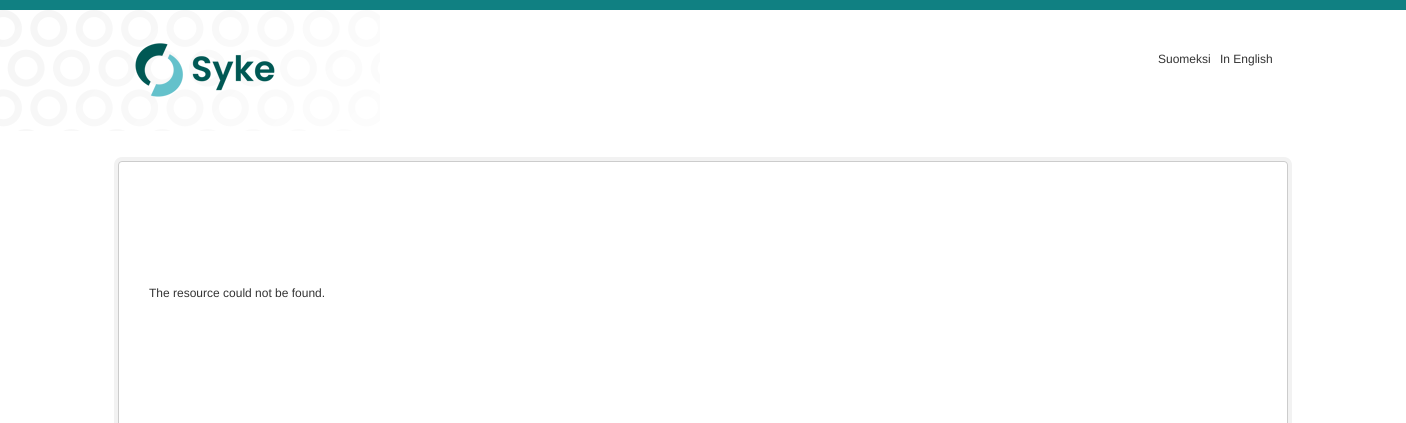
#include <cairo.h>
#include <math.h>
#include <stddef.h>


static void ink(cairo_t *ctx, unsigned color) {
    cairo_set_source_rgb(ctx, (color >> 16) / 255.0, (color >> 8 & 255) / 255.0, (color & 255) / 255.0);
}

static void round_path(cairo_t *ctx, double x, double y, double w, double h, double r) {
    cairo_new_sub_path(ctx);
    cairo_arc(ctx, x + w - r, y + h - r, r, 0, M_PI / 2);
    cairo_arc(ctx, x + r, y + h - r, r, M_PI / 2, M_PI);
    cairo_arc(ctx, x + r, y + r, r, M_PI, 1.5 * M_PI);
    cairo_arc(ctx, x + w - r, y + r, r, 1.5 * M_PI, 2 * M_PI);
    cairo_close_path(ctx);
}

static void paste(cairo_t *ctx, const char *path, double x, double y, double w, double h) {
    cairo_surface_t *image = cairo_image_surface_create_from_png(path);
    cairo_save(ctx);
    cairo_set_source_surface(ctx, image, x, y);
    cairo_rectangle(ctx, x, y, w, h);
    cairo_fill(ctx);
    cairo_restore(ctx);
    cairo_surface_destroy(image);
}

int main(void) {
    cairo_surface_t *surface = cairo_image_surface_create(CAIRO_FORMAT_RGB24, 1406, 423);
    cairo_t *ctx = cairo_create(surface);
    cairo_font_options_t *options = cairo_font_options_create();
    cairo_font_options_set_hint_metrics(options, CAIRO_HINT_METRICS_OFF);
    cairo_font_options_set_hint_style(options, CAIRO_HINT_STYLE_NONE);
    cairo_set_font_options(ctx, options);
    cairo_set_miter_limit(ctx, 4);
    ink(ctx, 0x108082);
    cairo_paint(ctx);
    ink(ctx, 0xFFFFFF);
    cairo_rectangle(ctx, 380, 10, 1026, 121);
    cairo_fill(ctx);
    paste(ctx, "media/1.png", 0, 10, 380, 121);
    paste(ctx, "media/2.png", 135, 43, 140, 54);
    cairo_select_font_face(ctx, "Liberation Sans", CAIRO_FONT_SLANT_NORMAL, CAIRO_FONT_WEIGHT_NORMAL);
    cairo_set_font_size(ctx, 12);
    ink(ctx, 0x333333);
    cairo_move_to(ctx, 1158, 63);
    cairo_show_text(ctx, "Suomeksi");
    cairo_move_to(ctx, 1220, 63);
    cairo_show_text(ctx, "In English");
    ink(ctx, 0xFFFFFF);
    cairo_rectangle(ctx, 0, 131, 1406, 292);
    cairo_fill(ctx);
    round_path(ctx, 116, 159, 1174, 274, 6);
    ink(ctx, 0xF2F2F2);
    cairo_set_line_width(ctx, 4);
    cairo_stroke(ctx);
    ink(ctx, 0xFFFFFF);
    round_path(ctx, 118.5, 161.5, 1169, 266, 3.5);
    cairo_fill_preserve(ctx);
    ink(ctx, 0xCCCCCC);
    cairo_set_line_width(ctx, 1);
    cairo_stroke(ctx);
    ink(ctx, 0x333333);
    cairo_move_to(ctx, 149, 297);
    cairo_show_text(ctx, "The resource could not be found.");
    cairo_surface_write_to_png(surface, "image.png");
    cairo_font_options_destroy(options);
    cairo_destroy(ctx);
    cairo_surface_destroy(surface);
    return 0;
}
